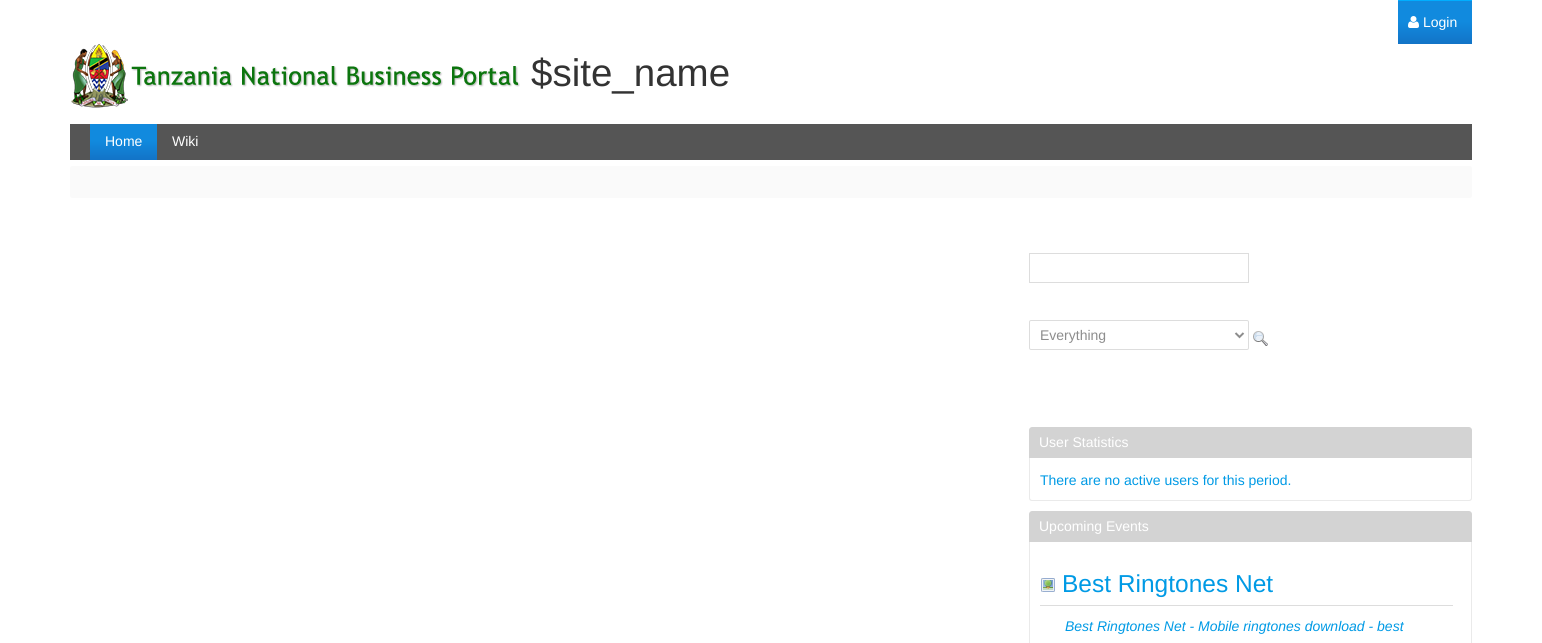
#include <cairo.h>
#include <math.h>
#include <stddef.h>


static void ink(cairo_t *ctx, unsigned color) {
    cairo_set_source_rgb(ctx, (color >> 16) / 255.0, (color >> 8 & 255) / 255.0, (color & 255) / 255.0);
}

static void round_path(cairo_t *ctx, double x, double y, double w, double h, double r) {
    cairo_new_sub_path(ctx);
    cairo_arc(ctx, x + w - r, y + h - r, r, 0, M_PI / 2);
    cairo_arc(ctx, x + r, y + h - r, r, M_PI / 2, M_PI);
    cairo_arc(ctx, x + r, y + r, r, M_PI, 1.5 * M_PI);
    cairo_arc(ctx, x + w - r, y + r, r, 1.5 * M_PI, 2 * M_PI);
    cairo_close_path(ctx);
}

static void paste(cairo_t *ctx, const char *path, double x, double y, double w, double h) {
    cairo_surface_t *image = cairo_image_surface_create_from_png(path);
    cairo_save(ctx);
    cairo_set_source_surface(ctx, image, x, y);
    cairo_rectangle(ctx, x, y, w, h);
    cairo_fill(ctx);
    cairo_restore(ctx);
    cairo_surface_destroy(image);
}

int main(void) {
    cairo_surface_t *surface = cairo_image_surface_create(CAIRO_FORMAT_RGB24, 1542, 643);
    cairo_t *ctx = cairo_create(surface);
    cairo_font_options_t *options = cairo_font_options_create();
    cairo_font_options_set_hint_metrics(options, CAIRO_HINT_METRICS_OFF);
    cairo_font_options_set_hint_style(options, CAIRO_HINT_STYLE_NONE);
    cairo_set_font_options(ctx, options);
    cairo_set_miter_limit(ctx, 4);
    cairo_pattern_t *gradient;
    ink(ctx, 0xFFFFFF);
    cairo_paint(ctx);
    ink(ctx, 0x00AEFF);
    cairo_rectangle(ctx, 1398, 0, 74, 1);
    cairo_fill(ctx);
    gradient = cairo_pattern_create_linear(1435, 1, 1435, 44);
    cairo_pattern_add_color_stop_rgba(gradient, 0, 0.067, 0.541, 0.871, 1);
    cairo_pattern_add_color_stop_rgba(gradient, 0.47, 0.067, 0.541, 0.871, 1);
    cairo_pattern_add_color_stop_rgba(gradient, 1, 0.071, 0.451, 0.78, 1);
    cairo_set_source(ctx, gradient);
    cairo_pattern_destroy(gradient);
    cairo_rectangle(ctx, 1398, 1, 74, 43);
    cairo_fill(ctx);
    paste(ctx, "media/1.png", 1408, 16, 11, 12);
    cairo_select_font_face(ctx, "Liberation Sans", CAIRO_FONT_SLANT_NORMAL, CAIRO_FONT_WEIGHT_NORMAL);
    cairo_set_font_size(ctx, 14);
    ink(ctx, 0xFFFFFF);
    cairo_move_to(ctx, 1423, 27);
    cairo_show_text(ctx, "Login");
    paste(ctx, "media/2.png", 71, 44, 449, 64);
    cairo_set_font_size(ctx, 38.5);
    ink(ctx, 0x333333);
    cairo_move_to(ctx, 531, 86);
    cairo_show_text(ctx, "$site_name");
    ink(ctx, 0x555555);
    cairo_rectangle(ctx, 70, 124, 1402, 36);
    cairo_fill(ctx);
    gradient = cairo_pattern_create_linear(124, 124, 124, 160);
    cairo_pattern_add_color_stop_rgba(gradient, 0, 0.067, 0.541, 0.871, 1);
    cairo_pattern_add_color_stop_rgba(gradient, 0.47, 0.067, 0.541, 0.871, 1);
    cairo_pattern_add_color_stop_rgba(gradient, 1, 0.071, 0.451, 0.78, 1);
    cairo_set_source(ctx, gradient);
    cairo_pattern_destroy(gradient);
    cairo_rectangle(ctx, 90, 124, 67, 36);
    cairo_fill(ctx);
    cairo_set_font_size(ctx, 14);
    ink(ctx, 0xFFFFFF);
    cairo_move_to(ctx, 105, 146);
    cairo_show_text(ctx, "Home");
    cairo_move_to(ctx, 172, 146);
    cairo_show_text(ctx, "Wiki");
    ink(ctx, 0xFAFAFA);
    round_path(ctx, 70, 166, 1402, 32, 2);
    cairo_fill(ctx);
    cairo_rectangle(ctx, 1029.5, 253.5, 219, 29);
    ink(ctx, 0xDDDDDD);
    cairo_set_line_width(ctx, 1);
    cairo_stroke(ctx);
    round_path(ctx, 1029.5, 320.5, 219, 29, 1.5);
    cairo_stroke(ctx);
    cairo_new_path(ctx);
    cairo_move_to(ctx, 1235.5, 333);
    cairo_line_to(ctx, 1239.5, 337);
    cairo_line_to(ctx, 1243.5, 333);
    ink(ctx, 0x8D8D8D);
    cairo_set_line_width(ctx, 2);
    cairo_stroke(ctx);
    cairo_move_to(ctx, 1040, 340);
    cairo_show_text(ctx, "Everything");
    paste(ctx, "media/3.png", 1253, 331, 15, 15);
    ink(ctx, 0xD3D3D3);
    cairo_new_path(ctx);
    cairo_move_to(ctx, 1032, 427);
    cairo_line_to(ctx, 1469, 427);
    cairo_curve_to(ctx, 1470.5, 427, 1472, 428.5, 1472, 430);
    cairo_line_to(ctx, 1472, 458);
    cairo_line_to(ctx, 1029, 458);
    cairo_line_to(ctx, 1029, 430);
    cairo_curve_to(ctx, 1029, 428.5, 1030.5, 427, 1032, 427);
    cairo_close_path(ctx);
    cairo_fill(ctx);
    ink(ctx, 0xFFFFFF);
    cairo_move_to(ctx, 1039, 447);
    cairo_show_text(ctx, "User Statistics");
    ink(ctx, 0xEAEAEA);
    cairo_set_fill_rule(ctx, CAIRO_FILL_RULE_EVEN_ODD);
    cairo_new_path(ctx);
    cairo_move_to(ctx, 1029, 458);
    cairo_line_to(ctx, 1472, 458);
    cairo_line_to(ctx, 1472, 498);
    cairo_curve_to(ctx, 1472, 500, 1471, 501, 1469, 501);
    cairo_line_to(ctx, 1032, 501);
    cairo_curve_to(ctx, 1030, 501, 1029, 500, 1029, 498);
    cairo_close_path(ctx);
    cairo_move_to(ctx, 1030, 458);
    cairo_line_to(ctx, 1471, 458);
    cairo_line_to(ctx, 1471, 498);
    cairo_curve_to(ctx, 1471, 499, 1470, 500, 1469, 500);
    cairo_line_to(ctx, 1032, 500);
    cairo_curve_to(ctx, 1031, 500, 1030, 499, 1030, 498);
    cairo_close_path(ctx);
    cairo_fill(ctx);
    ink(ctx, 0x009AE5);
    cairo_move_to(ctx, 1040, 485);
    cairo_show_text(ctx, "There are no active users for this period.");
    ink(ctx, 0xD3D3D3);
    cairo_new_path(ctx);
    cairo_move_to(ctx, 1032, 511);
    cairo_line_to(ctx, 1469, 511);
    cairo_curve_to(ctx, 1470.5, 511, 1472, 512.5, 1472, 514);
    cairo_line_to(ctx, 1472, 542);
    cairo_line_to(ctx, 1029, 542);
    cairo_line_to(ctx, 1029, 514);
    cairo_curve_to(ctx, 1029, 512.5, 1030.5, 511, 1032, 511);
    cairo_close_path(ctx);
    cairo_fill(ctx);
    ink(ctx, 0xFFFFFF);
    cairo_move_to(ctx, 1039, 531);
    cairo_show_text(ctx, "Upcoming Events");
    ink(ctx, 0xEAEAEA);
    cairo_new_path(ctx);
    cairo_move_to(ctx, 1029, 542);
    cairo_line_to(ctx, 1472, 542);
    cairo_line_to(ctx, 1472, 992);
    cairo_curve_to(ctx, 1472, 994, 1471, 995, 1469, 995);
    cairo_line_to(ctx, 1032, 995);
    cairo_curve_to(ctx, 1030, 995, 1029, 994, 1029, 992);
    cairo_close_path(ctx);
    cairo_move_to(ctx, 1030, 542);
    cairo_line_to(ctx, 1471, 542);
    cairo_line_to(ctx, 1471, 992);
    cairo_curve_to(ctx, 1471, 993, 1470, 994, 1469, 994);
    cairo_line_to(ctx, 1032, 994);
    cairo_curve_to(ctx, 1031, 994, 1030, 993, 1030, 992);
    cairo_close_path(ctx);
    cairo_fill(ctx);
    ink(ctx, 0xDDDDDD);
    cairo_rectangle(ctx, 1040, 605, 413, 1);
    cairo_fill(ctx);
    paste(ctx, "media/4.png", 1041, 578, 14, 14);
    cairo_set_font_size(ctx, 24.5);
    ink(ctx, 0x009AE5);
    cairo_move_to(ctx, 1062, 592);
    cairo_show_text(ctx, "Best Ringtones Net");
    cairo_select_font_face(ctx, "Liberation Sans", CAIRO_FONT_SLANT_ITALIC, CAIRO_FONT_WEIGHT_NORMAL);
    cairo_set_font_size(ctx, 14);
    cairo_move_to(ctx, 1065, 631);
    cairo_show_text(ctx, "Best Ringtones Net - Mobile ringtones download - best");
    cairo_surface_write_to_png(surface, "image.png");
    cairo_font_options_destroy(options);
    cairo_destroy(ctx);
    cairo_surface_destroy(surface);
    return 0;
}
